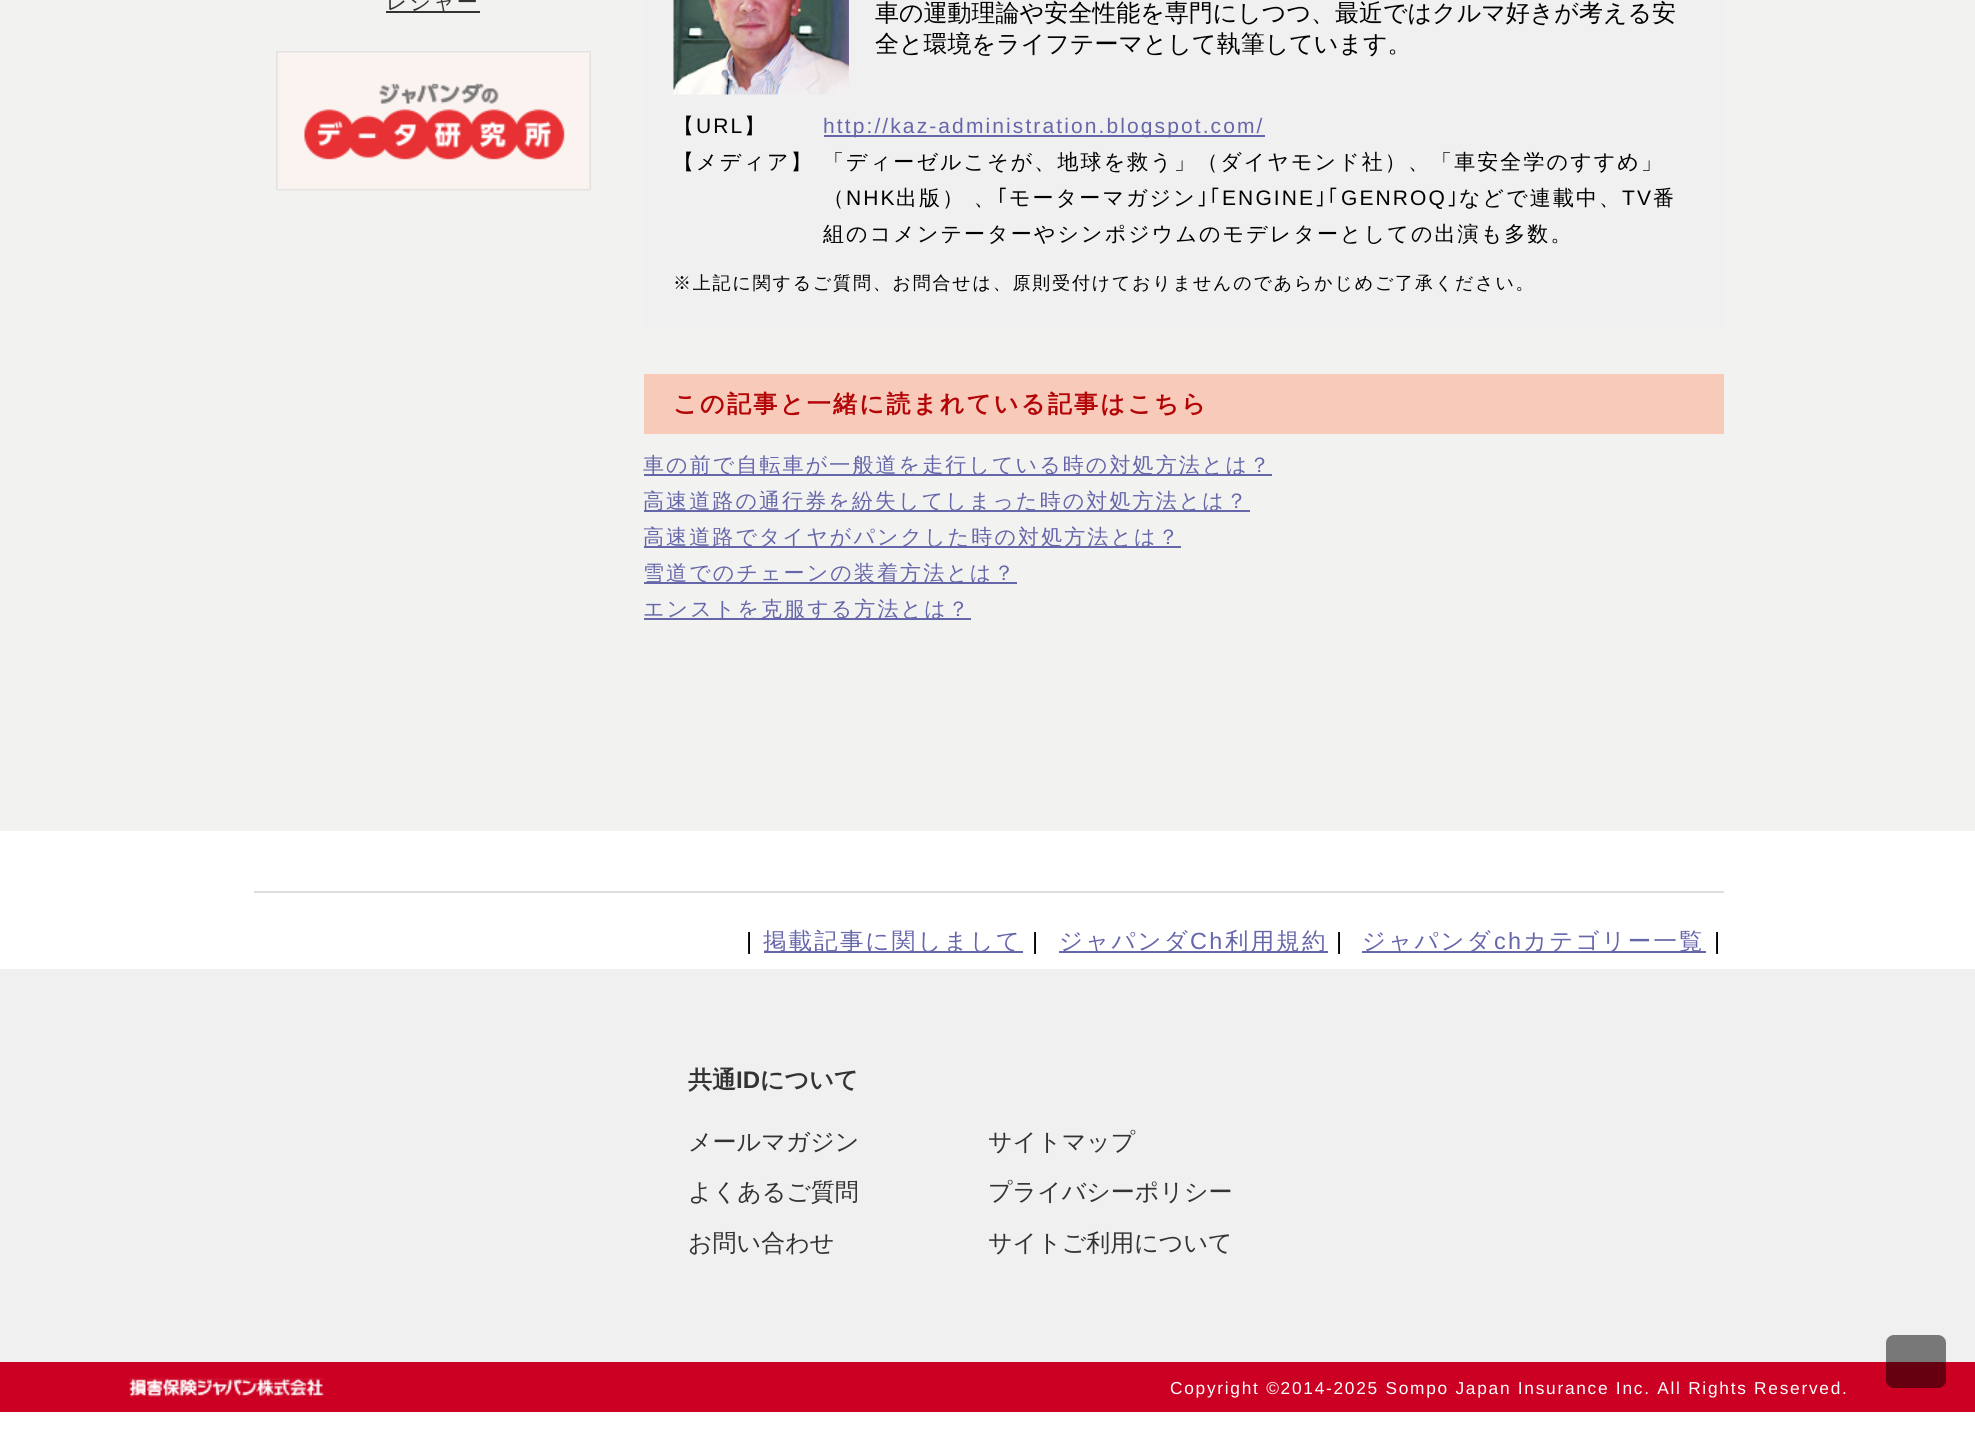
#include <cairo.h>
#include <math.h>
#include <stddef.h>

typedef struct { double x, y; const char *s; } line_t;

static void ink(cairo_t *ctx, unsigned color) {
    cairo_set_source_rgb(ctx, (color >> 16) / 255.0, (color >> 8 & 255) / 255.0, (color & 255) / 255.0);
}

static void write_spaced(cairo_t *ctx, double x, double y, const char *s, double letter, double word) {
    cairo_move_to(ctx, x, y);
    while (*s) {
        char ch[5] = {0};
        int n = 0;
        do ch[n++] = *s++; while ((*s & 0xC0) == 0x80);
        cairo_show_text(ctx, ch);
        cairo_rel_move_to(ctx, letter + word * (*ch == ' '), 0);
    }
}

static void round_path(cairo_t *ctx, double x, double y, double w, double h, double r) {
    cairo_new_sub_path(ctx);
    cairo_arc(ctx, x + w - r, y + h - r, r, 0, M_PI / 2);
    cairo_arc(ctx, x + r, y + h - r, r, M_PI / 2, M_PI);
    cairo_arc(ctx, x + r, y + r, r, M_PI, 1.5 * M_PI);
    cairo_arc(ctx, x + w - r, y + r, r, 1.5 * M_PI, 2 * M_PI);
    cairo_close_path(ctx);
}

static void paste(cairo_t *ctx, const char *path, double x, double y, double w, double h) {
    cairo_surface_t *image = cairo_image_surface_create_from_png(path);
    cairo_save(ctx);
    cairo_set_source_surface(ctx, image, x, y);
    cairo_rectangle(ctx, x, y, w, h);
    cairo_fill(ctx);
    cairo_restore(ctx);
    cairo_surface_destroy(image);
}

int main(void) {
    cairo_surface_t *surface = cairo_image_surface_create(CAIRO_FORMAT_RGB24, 1975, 1447);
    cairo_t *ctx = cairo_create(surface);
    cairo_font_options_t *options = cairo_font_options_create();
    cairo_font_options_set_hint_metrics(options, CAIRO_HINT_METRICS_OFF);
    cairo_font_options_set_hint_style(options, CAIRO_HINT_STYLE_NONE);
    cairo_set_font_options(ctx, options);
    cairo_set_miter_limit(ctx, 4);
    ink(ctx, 0xFFFFFF);
    cairo_paint(ctx);
    ink(ctx, 0xF2F3F0);
    cairo_rectangle(ctx, 0, 0, 1975, 831);
    cairo_fill(ctx);
    ink(ctx, 0x333333);
    cairo_rectangle(ctx, 386, 11, 94, 2);
    cairo_fill(ctx);
    cairo_select_font_face(ctx, "WenQuanYi Zen Hei Medium", CAIRO_FONT_SLANT_NORMAL, CAIRO_FONT_WEIGHT_NORMAL);
    cairo_set_font_size(ctx, 21);
    write_spaced(ctx, 386, 9, "レジャー", 2.1, 0);
    paste(ctx, "media/1.png", 276, 51, 315, 140);
    ink(ctx, 0xF0F0F0);
    cairo_rectangle(ctx, 644, 0, 1080, 329);
    cairo_fill(ctx);
    paste(ctx, "media/2.png", 673, 0, 176, 95);
    cairo_set_font_size(ctx, 24);
    ink(ctx, 0x000000);
    cairo_move_to(ctx, 875, 21);
    cairo_show_text(ctx, "車の運動理論や安全性能を専門にしつつ、最近ではクルマ好きが考える安");
    cairo_move_to(ctx, 875, 52);
    cairo_show_text(ctx, "全と環境をライフテーマとして執筆しています。");
    cairo_set_font_size(ctx, 21);
    write_spaced(ctx, 673, 133, "【", 2.1, 0);
    cairo_select_font_face(ctx, "Liberation Sans", CAIRO_FONT_SLANT_NORMAL, CAIRO_FONT_WEIGHT_NORMAL);
    write_spaced(ctx, 696, 133, "URL", 2.1, 0);
    cairo_select_font_face(ctx, "WenQuanYi Zen Hei Medium", CAIRO_FONT_SLANT_NORMAL, CAIRO_FONT_WEIGHT_NORMAL);
    write_spaced(ctx, 744, 133, "】", 2.1, 0);
    ink(ctx, 0x6666AA);
    cairo_rectangle(ctx, 824, 135, 441, 2);
    cairo_fill(ctx);
    cairo_select_font_face(ctx, "Liberation Sans", CAIRO_FONT_SLANT_NORMAL, CAIRO_FONT_WEIGHT_NORMAL);
    write_spaced(ctx, 823, 133, "http://kaz-administration.blogspot.com/", 2.1, 0);
    cairo_select_font_face(ctx, "WenQuanYi Zen Hei Medium", CAIRO_FONT_SLANT_NORMAL, CAIRO_FONT_WEIGHT_NORMAL);
    ink(ctx, 0x000000);
    {
        static const line_t items[] = {
            {673, 169, "【メディア】"},
            {823, 169, "「ディーゼルこそが、地球を救う」（ダイヤモンド社）、「車安全学のすすめ」"},
            {823, 205, "（"},
        };
        for (size_t i = 0; i < sizeof items / sizeof *items; i++) {
            write_spaced(ctx, items[i].x, items[i].y, items[i].s, 2.1, 0);
        }
    }
    cairo_select_font_face(ctx, "Liberation Sans", CAIRO_FONT_SLANT_NORMAL, CAIRO_FONT_WEIGHT_NORMAL);
    write_spaced(ctx, 846, 205, "NHK", 2.1, 0);
    cairo_select_font_face(ctx, "WenQuanYi Zen Hei Medium", CAIRO_FONT_SLANT_NORMAL, CAIRO_FONT_WEIGHT_NORMAL);
    write_spaced(ctx, 896, 205, "出版） 、", 2.1, 0);
    cairo_select_font_face(ctx, "IPAPGothic", CAIRO_FONT_SLANT_NORMAL, CAIRO_FONT_WEIGHT_NORMAL);
    write_spaced(ctx, 997, 205, "｢", 2.1, 0);
    cairo_select_font_face(ctx, "WenQuanYi Zen Hei Medium", CAIRO_FONT_SLANT_NORMAL, CAIRO_FONT_WEIGHT_NORMAL);
    write_spaced(ctx, 1009, 205, "モーターマガジン", 2.1, 0);
    cairo_select_font_face(ctx, "IPAPGothic", CAIRO_FONT_SLANT_NORMAL, CAIRO_FONT_WEIGHT_NORMAL);
    write_spaced(ctx, 1197, 205, "｣｢", 2.1, 0);
    cairo_select_font_face(ctx, "Liberation Sans", CAIRO_FONT_SLANT_NORMAL, CAIRO_FONT_WEIGHT_NORMAL);
    write_spaced(ctx, 1222, 205, "ENGINE", 2.1, 0);
    cairo_select_font_face(ctx, "IPAPGothic", CAIRO_FONT_SLANT_NORMAL, CAIRO_FONT_WEIGHT_NORMAL);
    write_spaced(ctx, 1315, 205, "｣｢", 2.1, 0);
    cairo_select_font_face(ctx, "Liberation Sans", CAIRO_FONT_SLANT_NORMAL, CAIRO_FONT_WEIGHT_NORMAL);
    write_spaced(ctx, 1341, 205, "GENROQ", 2.1, 0);
    cairo_select_font_face(ctx, "IPAPGothic", CAIRO_FONT_SLANT_NORMAL, CAIRO_FONT_WEIGHT_NORMAL);
    write_spaced(ctx, 1447, 205, "｣", 2.1, 0);
    cairo_select_font_face(ctx, "WenQuanYi Zen Hei Medium", CAIRO_FONT_SLANT_NORMAL, CAIRO_FONT_WEIGHT_NORMAL);
    write_spaced(ctx, 1459, 205, "などで連載中、", 2.1, 0);
    cairo_select_font_face(ctx, "Liberation Sans", CAIRO_FONT_SLANT_NORMAL, CAIRO_FONT_WEIGHT_NORMAL);
    write_spaced(ctx, 1622, 205, "TV", 2.1, 0);
    cairo_select_font_face(ctx, "WenQuanYi Zen Hei Medium", CAIRO_FONT_SLANT_NORMAL, CAIRO_FONT_WEIGHT_NORMAL);
    write_spaced(ctx, 1653, 205, "番", 2.1, 0);
    write_spaced(ctx, 823, 241, "組のコメンテーターやシンポジウムのモデレターとしての出演も多数。", 2.1, 0);
    cairo_set_font_size(ctx, 18);
    write_spaced(ctx, 673, 289, "※上記に関するご質問、お問合せは、原則受付けておりませんのであらかじめご了承ください。", 1.8, 0);
    ink(ctx, 0xF8CAB9);
    cairo_rectangle(ctx, 644, 374, 1080, 60);
    cairo_fill(ctx);
    cairo_select_font_face(ctx, "WenQuanYi Zen Hei", CAIRO_FONT_SLANT_NORMAL, CAIRO_FONT_WEIGHT_BOLD);
    cairo_set_font_size(ctx, 24);
    ink(ctx, 0xB30407);
    write_spaced(ctx, 673, 412, "この記事と一緒に読まれている記事はこちら", 2.4, 0);
    ink(ctx, 0x6666AA);
    cairo_rectangle(ctx, 644, 474, 628, 2);
    cairo_fill(ctx);
    cairo_select_font_face(ctx, "WenQuanYi Zen Hei Medium", CAIRO_FONT_SLANT_NORMAL, CAIRO_FONT_WEIGHT_NORMAL);
    cairo_set_font_size(ctx, 21);
    write_spaced(ctx, 643, 472, "車の前で自転車が一般道を走行している時の対処方法とは？", 2.1, 0);
    cairo_rectangle(ctx, 644, 510, 606, 2);
    cairo_fill(ctx);
    write_spaced(ctx, 643, 508, "高速道路の通行券を紛失してしまった時の対処方法とは？", 2.1, 0);
    cairo_rectangle(ctx, 644, 546, 537, 2);
    cairo_fill(ctx);
    write_spaced(ctx, 643, 544, "高速道路でタイヤがパンクした時の対処方法とは？", 2.1, 0);
    cairo_rectangle(ctx, 644, 582, 373, 2);
    cairo_fill(ctx);
    write_spaced(ctx, 643, 580, "雪道でのチェーンの装着方法とは？", 2.1, 0);
    cairo_rectangle(ctx, 644, 618, 327, 2);
    cairo_fill(ctx);
    write_spaced(ctx, 643, 616, "エンストを克服する方法とは？", 2.1, 0);
    ink(ctx, 0xDEDEDE);
    cairo_rectangle(ctx, 254, 891, 1470, 2);
    cairo_fill(ctx);
    cairo_select_font_face(ctx, "Liberation Sans", CAIRO_FONT_SLANT_NORMAL, CAIRO_FONT_WEIGHT_NORMAL);
    cairo_set_font_size(ctx, 23.4);
    ink(ctx, 0x000000);
    write_spaced(ctx, 746, 949, "|", 2.25, 0);
    ink(ctx, 0x6666AA);
    cairo_rectangle(ctx, 764, 951, 259, 2);
    cairo_fill(ctx);
    cairo_select_font_face(ctx, "WenQuanYi Zen Hei Medium", CAIRO_FONT_SLANT_NORMAL, CAIRO_FONT_WEIGHT_NORMAL);
    write_spaced(ctx, 763, 949, "掲載記事に関しまして", 2.25, 0);
    cairo_select_font_face(ctx, "Liberation Sans", CAIRO_FONT_SLANT_NORMAL, CAIRO_FONT_WEIGHT_NORMAL);
    ink(ctx, 0x000000);
    write_spaced(ctx, 1032, 949, "|", 2.25, 0);
    ink(ctx, 0x6666AA);
    cairo_rectangle(ctx, 1059, 951, 269, 2);
    cairo_fill(ctx);
    cairo_select_font_face(ctx, "WenQuanYi Zen Hei Medium", CAIRO_FONT_SLANT_NORMAL, CAIRO_FONT_WEIGHT_NORMAL);
    write_spaced(ctx, 1059, 949, "ジャパンダ", 2.25, 0);
    cairo_select_font_face(ctx, "Liberation Sans", CAIRO_FONT_SLANT_NORMAL, CAIRO_FONT_WEIGHT_NORMAL);
    write_spaced(ctx, 1190, 949, "Ch", 2.25, 0);
    cairo_select_font_face(ctx, "WenQuanYi Zen Hei Medium", CAIRO_FONT_SLANT_NORMAL, CAIRO_FONT_WEIGHT_NORMAL);
    write_spaced(ctx, 1225, 949, "利用規約", 2.25, 0);
    cairo_select_font_face(ctx, "Liberation Sans", CAIRO_FONT_SLANT_NORMAL, CAIRO_FONT_WEIGHT_NORMAL);
    ink(ctx, 0x000000);
    write_spaced(ctx, 1336, 949, "|", 2.25, 0);
    ink(ctx, 0x6666AA);
    cairo_rectangle(ctx, 1362, 951, 344, 2);
    cairo_fill(ctx);
    cairo_select_font_face(ctx, "WenQuanYi Zen Hei Medium", CAIRO_FONT_SLANT_NORMAL, CAIRO_FONT_WEIGHT_NORMAL);
    write_spaced(ctx, 1362, 949, "ジャパンダ", 2.25, 0);
    cairo_select_font_face(ctx, "Liberation Sans", CAIRO_FONT_SLANT_NORMAL, CAIRO_FONT_WEIGHT_NORMAL);
    write_spaced(ctx, 1494, 949, "ch", 2.25, 0);
    cairo_select_font_face(ctx, "WenQuanYi Zen Hei Medium", CAIRO_FONT_SLANT_NORMAL, CAIRO_FONT_WEIGHT_NORMAL);
    write_spaced(ctx, 1523, 949, "カテゴリー一覧", 2.25, 0);
    cairo_select_font_face(ctx, "Liberation Sans", CAIRO_FONT_SLANT_NORMAL, CAIRO_FONT_WEIGHT_NORMAL);
    ink(ctx, 0x000000);
    write_spaced(ctx, 1714, 949, "|", 2.25, 0);
    ink(ctx, 0xF0F0F0);
    cairo_rectangle(ctx, 0, 969, 1975, 393);
    cairo_fill(ctx);
    cairo_select_font_face(ctx, "WenQuanYi Zen Hei", CAIRO_FONT_SLANT_NORMAL, CAIRO_FONT_WEIGHT_BOLD);
    cairo_set_font_size(ctx, 24);
    ink(ctx, 0x333333);
    cairo_move_to(ctx, 688, 1088);
    cairo_show_text(ctx, "共通");
    cairo_select_font_face(ctx, "Liberation Sans", CAIRO_FONT_SLANT_NORMAL, CAIRO_FONT_WEIGHT_BOLD);
    cairo_move_to(ctx, 736, 1088);
    cairo_show_text(ctx, "ID");
    cairo_select_font_face(ctx, "WenQuanYi Zen Hei", CAIRO_FONT_SLANT_NORMAL, CAIRO_FONT_WEIGHT_BOLD);
    cairo_move_to(ctx, 760, 1088);
    cairo_show_text(ctx, "について");
    cairo_select_font_face(ctx, "WenQuanYi Zen Hei Medium", CAIRO_FONT_SLANT_NORMAL, CAIRO_FONT_WEIGHT_NORMAL);
    {
        static const line_t items[] = {
            {688, 1150, "メールマガジン"},
            {688, 1200, "よくあるご質問"},
            {688, 1251, "お問い合わせ"},
            {988, 1150, "サイトマップ"},
            {988, 1200, "プライバシーポリシー"},
            {988, 1251, "サイトご利用について"},
        };
        for (size_t i = 0; i < sizeof items / sizeof *items; i++) {
            cairo_move_to(ctx, items[i].x, items[i].y);
            cairo_show_text(ctx, items[i].s);
        }
    }
    ink(ctx, 0xCC0022);
    cairo_rectangle(ctx, 0, 1362, 1975, 50);
    cairo_fill(ctx);
    paste(ctx, "media/3.png", 129, 1378, 195, 19);
    cairo_select_font_face(ctx, "Liberation Sans", CAIRO_FONT_SLANT_NORMAL, CAIRO_FONT_WEIGHT_NORMAL);
    cairo_set_font_size(ctx, 17.3);
    ink(ctx, 0xFFFFFF);
    write_spaced(ctx, 1170, 1394, "Copyright ©2014-2025 Sompo Japan Insurance Inc. All Rights Reserved.", 1.73, 0);
    cairo_set_source_rgba(ctx, 0, 0, 0, 0.5);
    round_path(ctx, 1886, 1335, 60, 53, 8);
    cairo_fill(ctx);
    cairo_surface_write_to_png(surface, "image.png");
    cairo_font_options_destroy(options);
    cairo_destroy(ctx);
    cairo_surface_destroy(surface);
    return 0;
}
